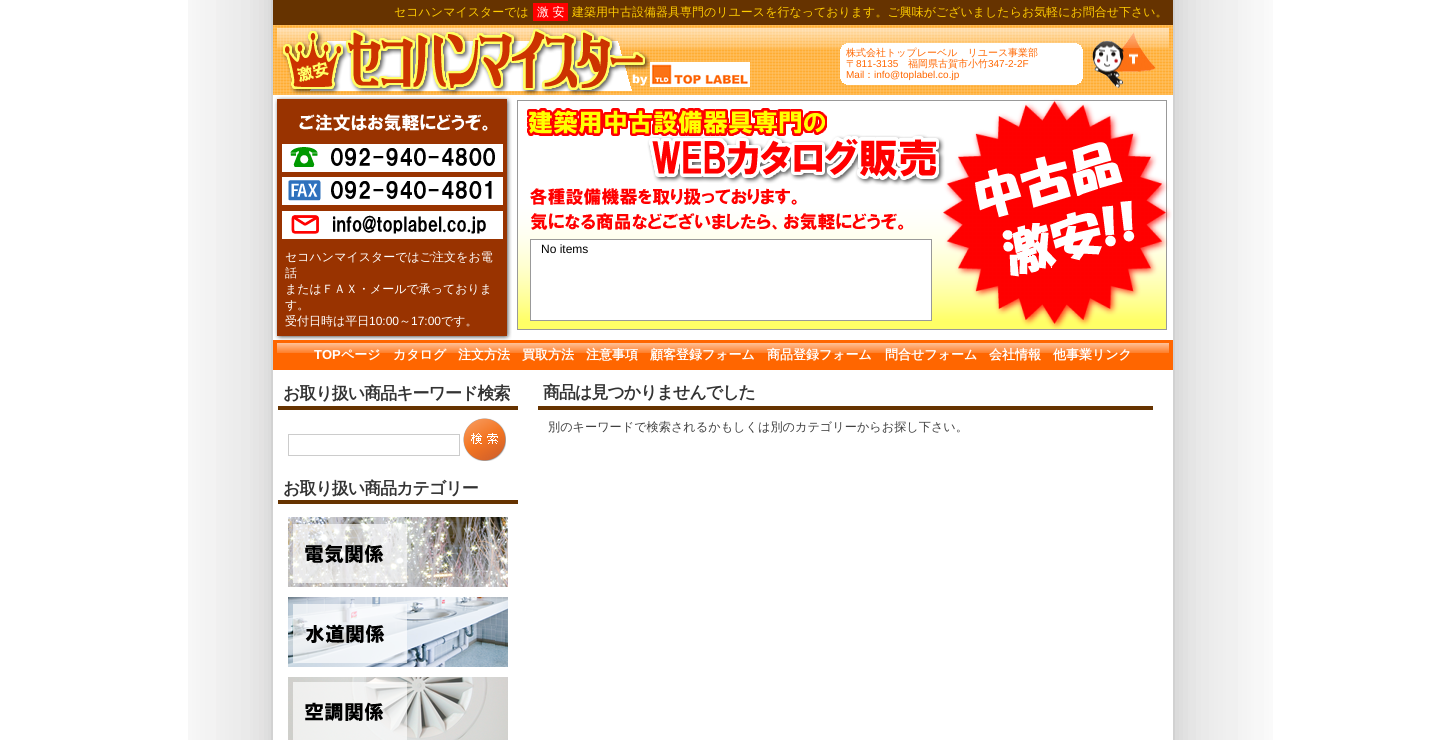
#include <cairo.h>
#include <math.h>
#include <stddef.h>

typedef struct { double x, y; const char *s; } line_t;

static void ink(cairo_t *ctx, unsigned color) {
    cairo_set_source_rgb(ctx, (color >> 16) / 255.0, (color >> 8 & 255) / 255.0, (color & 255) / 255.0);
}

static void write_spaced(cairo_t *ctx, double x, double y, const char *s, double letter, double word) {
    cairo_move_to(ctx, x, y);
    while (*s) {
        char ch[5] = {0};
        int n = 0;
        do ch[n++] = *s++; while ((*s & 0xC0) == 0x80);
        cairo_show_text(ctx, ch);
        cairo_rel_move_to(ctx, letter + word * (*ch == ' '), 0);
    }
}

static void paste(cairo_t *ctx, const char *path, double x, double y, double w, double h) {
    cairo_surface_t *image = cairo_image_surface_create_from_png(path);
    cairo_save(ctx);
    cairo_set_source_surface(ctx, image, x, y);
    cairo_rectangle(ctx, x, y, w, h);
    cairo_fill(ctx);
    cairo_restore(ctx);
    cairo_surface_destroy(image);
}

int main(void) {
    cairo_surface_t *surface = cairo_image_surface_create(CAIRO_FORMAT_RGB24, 1446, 740);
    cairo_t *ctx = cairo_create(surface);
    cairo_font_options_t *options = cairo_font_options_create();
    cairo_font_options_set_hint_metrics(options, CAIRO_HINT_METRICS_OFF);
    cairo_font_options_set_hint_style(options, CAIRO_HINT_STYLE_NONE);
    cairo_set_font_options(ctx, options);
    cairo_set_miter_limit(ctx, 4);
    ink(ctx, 0xFFFFFF);
    cairo_paint(ctx);
    paste(ctx, "media/1.png", 188, 0, 1085, 740);
    ink(ctx, 0x663300);
    cairo_rectangle(ctx, 273, 0, 900, 25);
    cairo_fill(ctx);
    cairo_select_font_face(ctx, "WenQuanYi Zen Hei Medium", CAIRO_FONT_SLANT_NORMAL, CAIRO_FONT_WEIGHT_NORMAL);
    cairo_set_font_size(ctx, 12);
    ink(ctx, 0xFFCC00);
    cairo_move_to(ctx, 394, 16);
    cairo_show_text(ctx, "セコハンマイスターでは");
    ink(ctx, 0xFF0000);
    cairo_rectangle(ctx, 533, 3, 35, 18);
    cairo_fill(ctx);
    ink(ctx, 0xFFFFFF);
    cairo_move_to(ctx, 537, 16);
    cairo_show_text(ctx, "激 安");
    ink(ctx, 0xFFCC00);
    cairo_move_to(ctx, 572, 16);
    cairo_show_text(ctx, "建築用中古設備器具専門のリユースを行なっております。ご興味がございましたらお気軽にお問合せ下さい。");
    paste(ctx, "media/2.png", 273, 25, 900, 70);
    paste(ctx, "media/3.png", 273, 27, 477, 68);
    paste(ctx, "media/4.png", 840, 28, 333, 60);
    cairo_set_font_size(ctx, 10);
    ink(ctx, 0xFF6600);
    cairo_move_to(ctx, 846, 56);
    cairo_show_text(ctx, "株式会社トップレーベル　リユース事業部");
    cairo_move_to(ctx, 846, 67);
    cairo_show_text(ctx, "〒");
    cairo_select_font_face(ctx, "Liberation Sans", CAIRO_FONT_SLANT_NORMAL, CAIRO_FONT_WEIGHT_NORMAL);
    cairo_move_to(ctx, 856, 67);
    cairo_show_text(ctx, "811-3135");
    cairo_select_font_face(ctx, "WenQuanYi Zen Hei Medium", CAIRO_FONT_SLANT_NORMAL, CAIRO_FONT_WEIGHT_NORMAL);
    cairo_move_to(ctx, 908, 67);
    cairo_show_text(ctx, "福岡県古賀市小竹");
    cairo_select_font_face(ctx, "Liberation Sans", CAIRO_FONT_SLANT_NORMAL, CAIRO_FONT_WEIGHT_NORMAL);
    cairo_move_to(ctx, 988, 67);
    cairo_show_text(ctx, "347-2-2F");
    cairo_move_to(ctx, 846, 78);
    cairo_show_text(ctx, "Mail");
    cairo_select_font_face(ctx, "WenQuanYi Zen Hei Medium", CAIRO_FONT_SLANT_NORMAL, CAIRO_FONT_WEIGHT_NORMAL);
    cairo_move_to(ctx, 864, 78);
    cairo_show_text(ctx, "：");
    cairo_select_font_face(ctx, "Liberation Sans", CAIRO_FONT_SLANT_NORMAL, CAIRO_FONT_WEIGHT_NORMAL);
    cairo_move_to(ctx, 874, 78);
    cairo_show_text(ctx, "info@toplabel.co.jp");
    paste(ctx, "media/5.png", 517, 95, 655, 139);
    paste(ctx, "media/6.png", 517, 234, 2, 96);
    paste(ctx, "media/7.png", 519, 234, 423, 96);
    ink(ctx, 0xFFFFFF);
    cairo_rectangle(ctx, 530.5, 239.5, 401, 81);
    cairo_fill_preserve(ctx);
    ink(ctx, 0x999999);
    cairo_set_line_width(ctx, 1);
    cairo_stroke(ctx);
    cairo_set_font_size(ctx, 12);
    ink(ctx, 0x000000);
    cairo_move_to(ctx, 541, 253);
    cairo_show_text(ctx, "No items");
    paste(ctx, "media/8.png", 942, 234, 226, 96);
    paste(ctx, "media/9.png", 274, 239, 238, 94);
    paste(ctx, "media/10.png", 274, 95, 238, 144);
    cairo_select_font_face(ctx, "WenQuanYi Zen Hei Medium", CAIRO_FONT_SLANT_NORMAL, CAIRO_FONT_WEIGHT_NORMAL);
    ink(ctx, 0xFFFFFF);
    {
        static const line_t items[] = {
            {285, 261, "セコハンマイスターではご注文をお電"},
            {285, 277, "話"},
            {285, 293, "またはＦＡＸ・メールで承っておりま"},
            {285, 309, "す。"},
            {285, 325, "受付日時は平日"},
        };
        for (size_t i = 0; i < sizeof items / sizeof *items; i++) {
            cairo_move_to(ctx, items[i].x, items[i].y);
            cairo_show_text(ctx, items[i].s);
        }
    }
    cairo_select_font_face(ctx, "Liberation Sans", CAIRO_FONT_SLANT_NORMAL, CAIRO_FONT_WEIGHT_NORMAL);
    cairo_move_to(ctx, 369, 325);
    cairo_show_text(ctx, "10:00");
    cairo_select_font_face(ctx, "WenQuanYi Zen Hei Medium", CAIRO_FONT_SLANT_NORMAL, CAIRO_FONT_WEIGHT_NORMAL);
    cairo_move_to(ctx, 399, 325);
    cairo_show_text(ctx, "～");
    cairo_select_font_face(ctx, "Liberation Sans", CAIRO_FONT_SLANT_NORMAL, CAIRO_FONT_WEIGHT_NORMAL);
    cairo_move_to(ctx, 411, 325);
    cairo_show_text(ctx, "17:00");
    cairo_select_font_face(ctx, "WenQuanYi Zen Hei Medium", CAIRO_FONT_SLANT_NORMAL, CAIRO_FONT_WEIGHT_NORMAL);
    cairo_move_to(ctx, 441, 325);
    cairo_show_text(ctx, "です。");
    paste(ctx, "media/11.png", 274, 333, 238, 7);
    paste(ctx, "media/12.png", 273, 340, 7, 30);
    paste(ctx, "media/13.png", 280, 340, 886, 30);
    cairo_select_font_face(ctx, "Liberation Sans", CAIRO_FONT_SLANT_NORMAL, CAIRO_FONT_WEIGHT_BOLD);
    cairo_set_font_size(ctx, 13);
    cairo_move_to(ctx, 314, 359);
    cairo_show_text(ctx, "TOP");
    cairo_select_font_face(ctx, "WenQuanYi Zen Hei", CAIRO_FONT_SLANT_NORMAL, CAIRO_FONT_WEIGHT_BOLD);
    {
        static const line_t items[] = {
            {341, 359, "ページ"},
            {393, 359, "カタログ"},
            {458, 359, "注文方法"},
            {522, 359, "買取方法"},
            {586, 359, "注意事項"},
            {650, 359, "顧客登録フォーム"},
            {767, 359, "商品登録フォーム"},
            {885, 359, "問合せフォーム"},
            {989, 359, "会社情報"},
            {1053, 359, "他事業リンク"},
        };
        for (size_t i = 0; i < sizeof items / sizeof *items; i++) {
            cairo_move_to(ctx, items[i].x, items[i].y);
            cairo_show_text(ctx, items[i].s);
        }
    }
    paste(ctx, "media/14.png", 1166, 340, 7, 30);
    ink(ctx, 0x663300);
    cairo_rectangle(ctx, 278, 406, 240, 4);
    cairo_fill(ctx);
    cairo_set_font_size(ctx, 17);
    ink(ctx, 0x333333);
    write_spaced(ctx, 283, 399, "お取り扱い商品キーワード検索", -1, 0);
    cairo_rectangle(ctx, 288.5, 434.5, 171, 21);
    ink(ctx, 0xCCCCCC);
    cairo_stroke(ctx);
    paste(ctx, "media/15.png", 463, 418, 43, 43);
    ink(ctx, 0x663300);
    cairo_rectangle(ctx, 278, 500, 240, 4);
    cairo_fill(ctx);
    ink(ctx, 0x333333);
    write_spaced(ctx, 283, 494, "お取り扱い商品カテゴリー", -1, 0);
    paste(ctx, "media/16.png", 288, 517, 220, 223);
    ink(ctx, 0x663300);
    cairo_rectangle(ctx, 538, 406, 615, 4);
    cairo_fill(ctx);
    ink(ctx, 0x333333);
    write_spaced(ctx, 543, 398, "商品は見つかりませんでした", -1, 0);
    cairo_select_font_face(ctx, "WenQuanYi Zen Hei Medium", CAIRO_FONT_SLANT_NORMAL, CAIRO_FONT_WEIGHT_NORMAL);
    cairo_set_font_size(ctx, 12.15);
    ink(ctx, 0x404040);
    cairo_move_to(ctx, 548, 431);
    cairo_show_text(ctx, "別のキーワードで検索されるかもしくは別のカテゴリーからお探し下さい。");
    cairo_surface_write_to_png(surface, "image.png");
    cairo_font_options_destroy(options);
    cairo_destroy(ctx);
    cairo_surface_destroy(surface);
    return 0;
}
